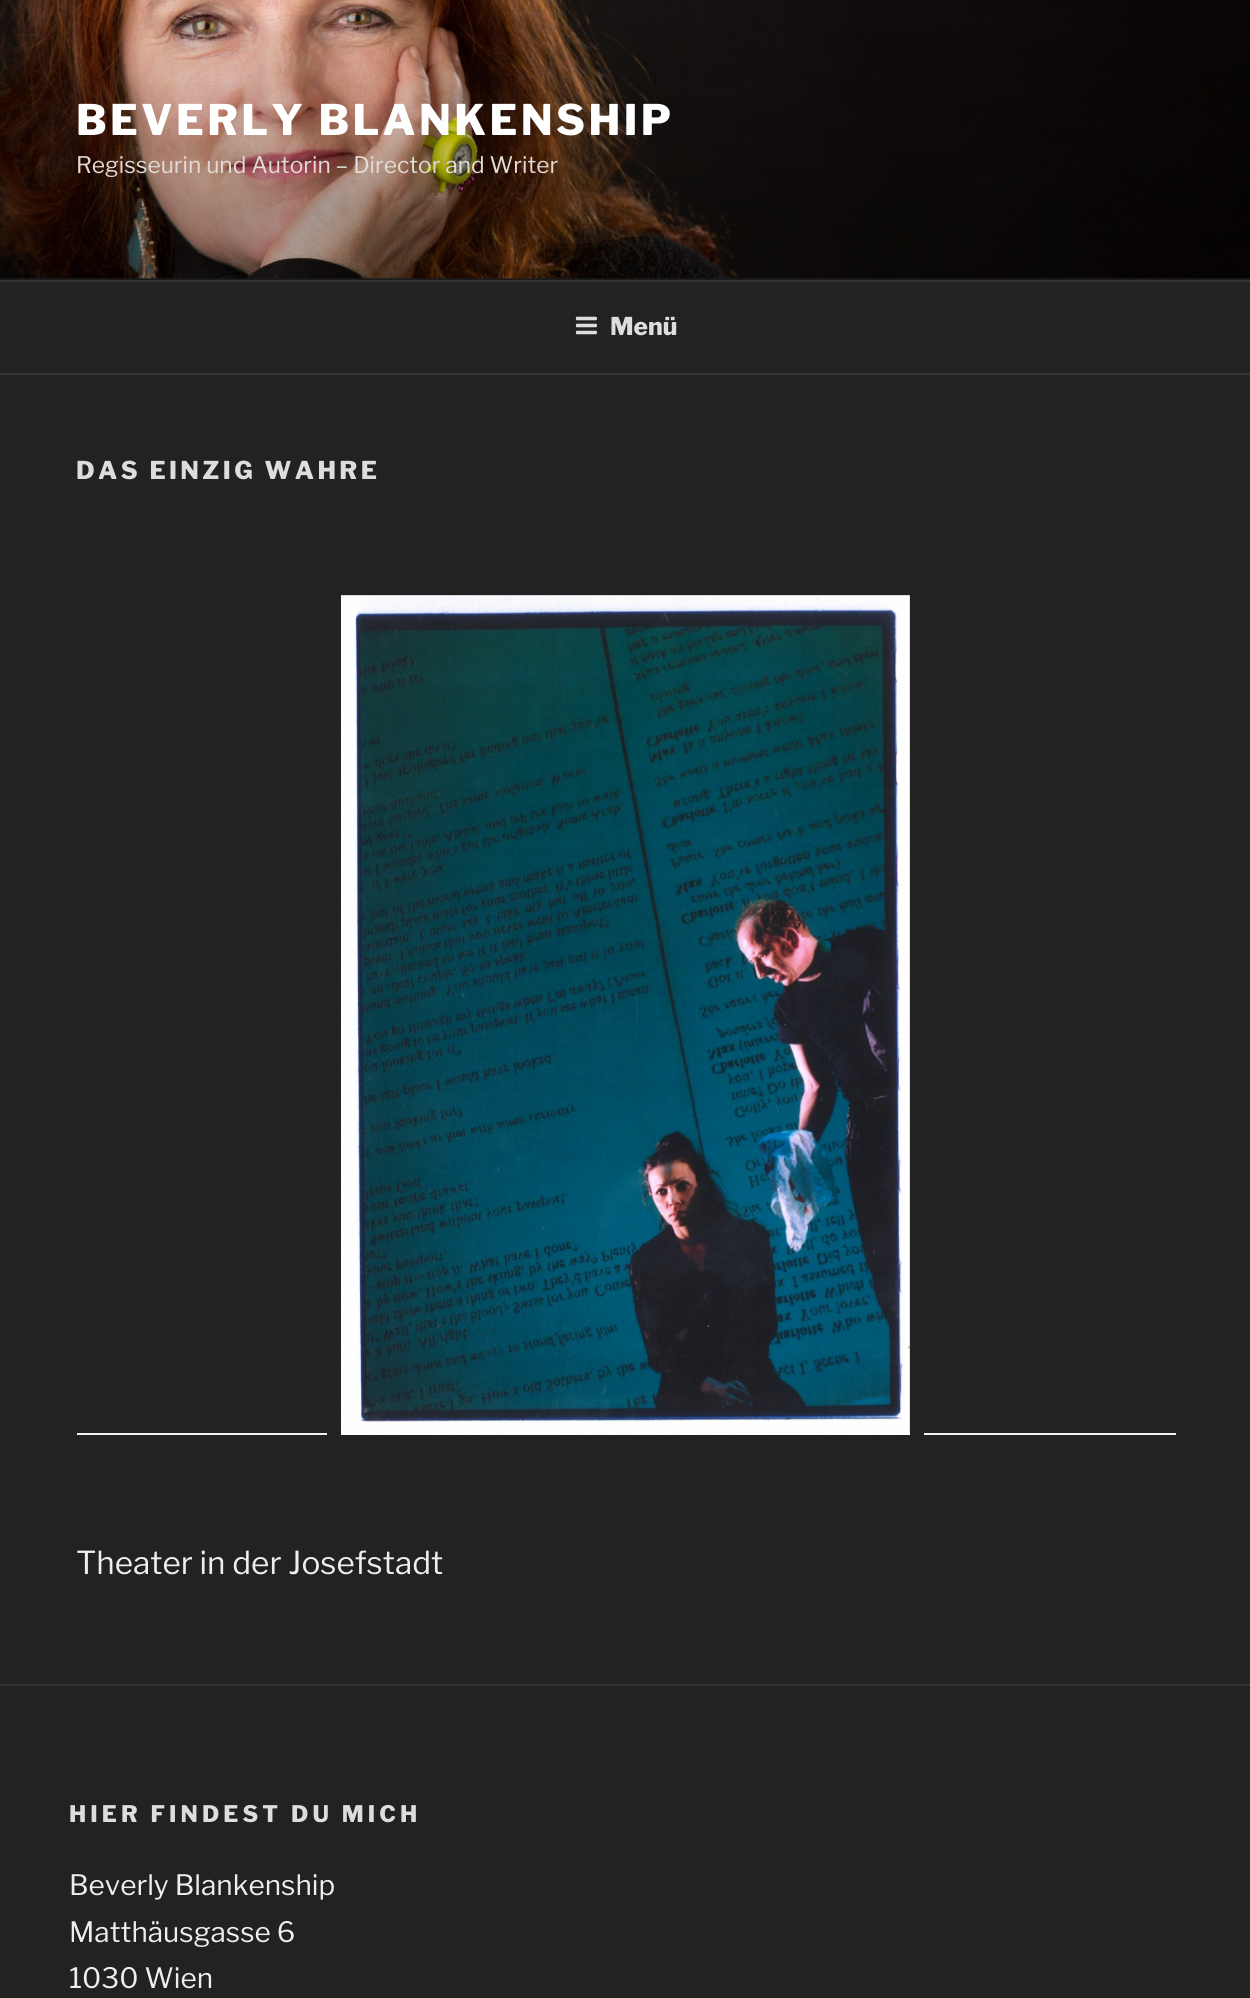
#include <cairo.h>
#include <math.h>
#include <stddef.h>

typedef struct { double x, y; const char *s; } line_t;

static void ink(cairo_t *ctx, unsigned color) {
    cairo_set_source_rgb(ctx, (color >> 16) / 255.0, (color >> 8 & 255) / 255.0, (color & 255) / 255.0);
}

static void write_spaced(cairo_t *ctx, double x, double y, const char *s, double letter, double word) {
    cairo_move_to(ctx, x, y);
    while (*s) {
        char ch[5] = {0};
        int n = 0;
        do ch[n++] = *s++; while ((*s & 0xC0) == 0x80);
        cairo_show_text(ctx, ch);
        cairo_rel_move_to(ctx, letter + word * (*ch == ' '), 0);
    }
}

static void paste(cairo_t *ctx, const char *path, double x, double y, double w, double h) {
    cairo_surface_t *image = cairo_image_surface_create_from_png(path);
    cairo_save(ctx);
    cairo_set_source_surface(ctx, image, x, y);
    cairo_rectangle(ctx, x, y, w, h);
    cairo_fill(ctx);
    cairo_restore(ctx);
    cairo_surface_destroy(image);
}

int main(void) {
    cairo_surface_t *surface = cairo_image_surface_create(CAIRO_FORMAT_RGB24, 1250, 1998);
    cairo_t *ctx = cairo_create(surface);
    cairo_font_options_t *options = cairo_font_options_create();
    cairo_font_options_set_hint_metrics(options, CAIRO_HINT_METRICS_OFF);
    cairo_font_options_set_hint_style(options, CAIRO_HINT_STYLE_NONE);
    cairo_set_font_options(ctx, options);
    cairo_set_miter_limit(ctx, 4);
    cairo_pattern_t *gradient;
    ink(ctx, 0x222222);
    cairo_paint(ctx);
    ink(ctx, 0x262626);
    cairo_rectangle(ctx, 0, 278, 1250, 2);
    cairo_fill(ctx);
    paste(ctx, "media/1.png", 0, 0, 1250, 279);
    gradient = cairo_pattern_create_linear(626, 0, 626, 280);
    cairo_pattern_add_color_stop_rgba(gradient, 0, 0, 0, 0, 0);
    cairo_pattern_add_color_stop_rgba(gradient, 0.75, 0, 0, 0, 0.3);
    cairo_pattern_add_color_stop_rgba(gradient, 1, 0, 0, 0, 0.3);
    cairo_set_source(ctx, gradient);
    cairo_pattern_destroy(gradient);
    cairo_rectangle(ctx, 0, 15, 1250, 265);
    cairo_fill(ctx);
    cairo_select_font_face(ctx, "Libre Franklin Thin", CAIRO_FONT_SLANT_NORMAL, CAIRO_FONT_WEIGHT_NORMAL);
    cairo_set_font_size(ctx, 42);
    ink(ctx, 0xFFFFFF);
    write_spaced(ctx, 76, 135, "BEVERLY BLANKENSHIP", 3.4, 0);
    cairo_select_font_face(ctx, "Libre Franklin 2 Thin", CAIRO_FONT_SLANT_NORMAL, CAIRO_FONT_WEIGHT_NORMAL);
    cairo_set_font_size(ctx, 22.75);
    ink(ctx, 0xE3DBD8);
    cairo_move_to(ctx, 76, 173);
    cairo_show_text(ctx, "Regisseurin und Autorin – Director and Writer");
    ink(ctx, 0x333333);
    cairo_rectangle(ctx, 0, 280, 1250, 2);
    cairo_fill(ctx);
    cairo_rectangle(ctx, 0, 373, 1250, 2);
    cairo_fill(ctx);
    paste(ctx, "media/2.png", 575, 316, 22, 19);
    cairo_select_font_face(ctx, "Libre Franklin Thin", CAIRO_FONT_SLANT_NORMAL, CAIRO_FONT_WEIGHT_NORMAL);
    cairo_set_font_size(ctx, 24.5);
    ink(ctx, 0xDDDDDD);
    cairo_move_to(ctx, 610, 335);
    cairo_show_text(ctx, "Menü");
    write_spaced(ctx, 76, 479, "DAS EINZIG WAHRE", 3.4, 0);
    ink(ctx, 0xF0F0F0);
    cairo_rectangle(ctx, 77, 1433, 1099, 2);
    cairo_fill(ctx);
    cairo_save(ctx);
    cairo_rectangle(ctx, 77, 595, 1099, 856);
    cairo_clip(ctx);
    cairo_rectangle(ctx, 334, 588, 583, 854);
    ink(ctx, 0x222222);
    cairo_set_line_width(ctx, 14);
    cairo_stroke(ctx);
    cairo_restore(ctx);
    paste(ctx, "media/3.png", 341, 595, 569, 840);
    cairo_select_font_face(ctx, "Libre Franklin 2 Thin", CAIRO_FONT_SLANT_NORMAL, CAIRO_FONT_WEIGHT_NORMAL);
    cairo_set_font_size(ctx, 31.5);
    ink(ctx, 0xEEEEEE);
    cairo_move_to(ctx, 76, 1574);
    cairo_show_text(ctx, "Theater in der Josefstadt");
    ink(ctx, 0x333333);
    cairo_rectangle(ctx, 0, 1684, 1250, 2);
    cairo_fill(ctx);
    cairo_select_font_face(ctx, "Libre Franklin Thin", CAIRO_FONT_SLANT_NORMAL, CAIRO_FONT_WEIGHT_NORMAL);
    cairo_set_font_size(ctx, 22.75);
    ink(ctx, 0xDDDDDD);
    write_spaced(ctx, 69, 1822, "HIER FINDEST DU MICH", 4.1, 0);
    cairo_select_font_face(ctx, "Libre Franklin 2 Thin", CAIRO_FONT_SLANT_NORMAL, CAIRO_FONT_WEIGHT_NORMAL);
    cairo_set_font_size(ctx, 28);
    ink(ctx, 0xEEEEEE);
    {
        static const line_t items[] = {
            {69, 1895, "Beverly Blankenship"},
            {69, 1942, "Matthäusgasse 6"},
            {69, 1988, "1030 Wien"},
        };
        for (size_t i = 0; i < sizeof items / sizeof *items; i++) {
            cairo_move_to(ctx, items[i].x, items[i].y);
            cairo_show_text(ctx, items[i].s);
        }
    }
    cairo_surface_write_to_png(surface, "image.png");
    cairo_font_options_destroy(options);
    cairo_destroy(ctx);
    cairo_surface_destroy(surface);
    return 0;
}
